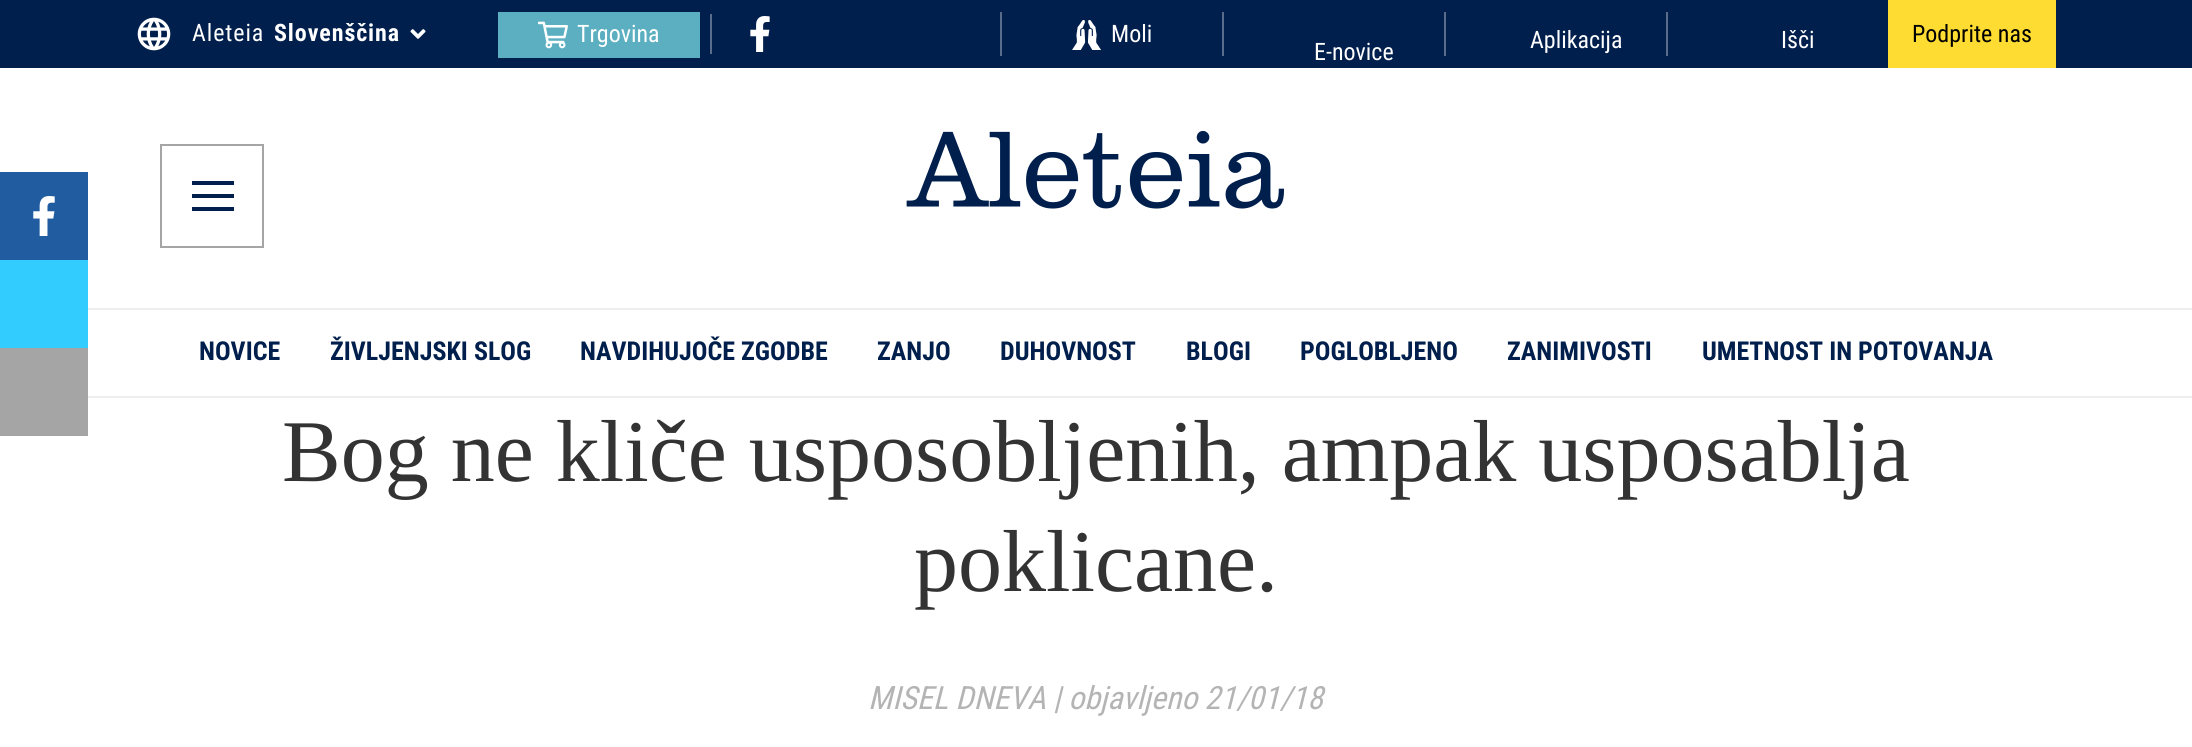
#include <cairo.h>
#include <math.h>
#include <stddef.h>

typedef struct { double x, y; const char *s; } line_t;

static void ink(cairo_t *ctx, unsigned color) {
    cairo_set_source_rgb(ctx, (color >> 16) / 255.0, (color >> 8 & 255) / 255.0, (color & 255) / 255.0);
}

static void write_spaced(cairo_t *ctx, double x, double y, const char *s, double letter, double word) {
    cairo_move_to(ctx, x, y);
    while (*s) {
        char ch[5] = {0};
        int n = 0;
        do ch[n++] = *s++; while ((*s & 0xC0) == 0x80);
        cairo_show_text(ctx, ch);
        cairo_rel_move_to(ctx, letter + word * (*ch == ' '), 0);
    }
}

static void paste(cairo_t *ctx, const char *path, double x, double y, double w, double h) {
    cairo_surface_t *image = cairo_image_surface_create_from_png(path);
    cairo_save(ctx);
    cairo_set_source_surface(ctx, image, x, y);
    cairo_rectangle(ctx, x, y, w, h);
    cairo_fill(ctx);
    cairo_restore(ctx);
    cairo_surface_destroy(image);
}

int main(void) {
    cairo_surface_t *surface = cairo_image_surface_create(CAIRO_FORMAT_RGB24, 2192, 747);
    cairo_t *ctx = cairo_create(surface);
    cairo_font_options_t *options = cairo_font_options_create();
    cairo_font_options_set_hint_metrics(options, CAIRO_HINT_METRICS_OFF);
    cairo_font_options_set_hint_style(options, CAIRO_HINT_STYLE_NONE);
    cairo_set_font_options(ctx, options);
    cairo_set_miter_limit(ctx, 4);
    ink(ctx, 0xFFFFFF);
    cairo_paint(ctx);
    ink(ctx, 0x001F4D);
    cairo_rectangle(ctx, 0, 0, 2192, 68);
    cairo_fill(ctx);
    paste(ctx, "media/1.png", 137, 17, 34, 34);
    cairo_select_font_face(ctx, "Roboto Condensed", CAIRO_FONT_SLANT_NORMAL, CAIRO_FONT_WEIGHT_NORMAL);
    cairo_set_font_size(ctx, 24);
    ink(ctx, 0xFFFFFF);
    write_spaced(ctx, 192, 41, "Aleteia", 0.9, 0);
    cairo_select_font_face(ctx, "Roboto Condensed", CAIRO_FONT_SLANT_NORMAL, CAIRO_FONT_WEIGHT_BOLD);
    write_spaced(ctx, 274, 41, "Slovenščina", 0.9, 0);
    paste(ctx, "media/2.png", 410, 29, 16, 10);
    ink(ctx, 0x5BAFC0);
    cairo_rectangle(ctx, 498, 12, 202, 46);
    cairo_fill(ctx);
    paste(ctx, "media/3.png", 538, 21, 30, 28);
    cairo_select_font_face(ctx, "Roboto Condensed", CAIRO_FONT_SLANT_NORMAL, CAIRO_FONT_WEIGHT_NORMAL);
    ink(ctx, 0xFFFFFF);
    cairo_move_to(ctx, 577, 42);
    cairo_show_text(ctx, "Trgovina");
    ink(ctx, 0x596D8B);
    cairo_rectangle(ctx, 710, 14, 2, 40);
    cairo_fill(ctx);
    paste(ctx, "media/4.png", 750, 16, 20, 36);
    cairo_rectangle(ctx, 1000, 12, 2, 44);
    cairo_fill(ctx);
    paste(ctx, "media/5.png", 1072, 20, 29, 30);
    ink(ctx, 0xFFFFFF);
    cairo_move_to(ctx, 1111, 42);
    cairo_show_text(ctx, "Moli");
    ink(ctx, 0x596D8B);
    cairo_rectangle(ctx, 1444, 12, 2, 44);
    cairo_fill(ctx);
    ink(ctx, 0xFFFFFF);
    cairo_move_to(ctx, 1530, 48);
    cairo_show_text(ctx, "Aplikacija");
    ink(ctx, 0x596D8B);
    cairo_rectangle(ctx, 1666, 12, 2, 44);
    cairo_fill(ctx);
    ink(ctx, 0xFFFFFF);
    cairo_move_to(ctx, 1781, 48);
    cairo_show_text(ctx, "Išči");
    ink(ctx, 0xFFDC31);
    cairo_rectangle(ctx, 1888, 0, 168, 68);
    cairo_fill(ctx);
    ink(ctx, 0x000000);
    cairo_move_to(ctx, 1912, 42);
    cairo_show_text(ctx, "Podprite nas");
    ink(ctx, 0x596D8B);
    cairo_rectangle(ctx, 1222, 12, 2, 44);
    cairo_fill(ctx);
    ink(ctx, 0xFFFFFF);
    cairo_move_to(ctx, 1314, 60);
    cairo_show_text(ctx, "E-novice");
    cairo_rectangle(ctx, 161, 145, 102, 102);
    ink(ctx, 0xA5A5A5);
    cairo_stroke(ctx);
    ink(ctx, 0x001F4D);
    cairo_set_fill_rule(ctx, CAIRO_FILL_RULE_EVEN_ODD);
    cairo_new_path(ctx);
    cairo_move_to(ctx, 192, 207);
    cairo_line_to(ctx, 192, 211);
    cairo_line_to(ctx, 234, 211);
    cairo_line_to(ctx, 234, 207);
    cairo_close_path(ctx);
    cairo_move_to(ctx, 192, 194);
    cairo_line_to(ctx, 192, 198);
    cairo_line_to(ctx, 234, 198);
    cairo_line_to(ctx, 234, 194);
    cairo_close_path(ctx);
    cairo_move_to(ctx, 192, 181);
    cairo_line_to(ctx, 192, 185);
    cairo_line_to(ctx, 234, 185);
    cairo_line_to(ctx, 234, 181);
    cairo_close_path(ctx);
    cairo_fill(ctx);
    paste(ctx, "media/6.png", 906, 130, 379, 79);
    ink(ctx, 0xEEEEEE);
    cairo_rectangle(ctx, 88, 308, 2104, 2);
    cairo_fill(ctx);
    cairo_rectangle(ctx, 88, 396, 2104, 2);
    cairo_fill(ctx);
    cairo_select_font_face(ctx, "Roboto Condensed", CAIRO_FONT_SLANT_NORMAL, CAIRO_FONT_WEIGHT_BOLD);
    cairo_set_font_size(ctx, 26);
    ink(ctx, 0x001F4D);
    {
        static const line_t items[] = {
            {199, 360, "NOVICE"},
            {330, 360, "ŽIVLJENJSKI SLOG"},
            {580, 360, "NAVDIHUJOČE ZGODBE"},
            {877, 360, "ZANJO"},
            {1000, 360, "DUHOVNOST"},
            {1186, 360, "BLOGI"},
            {1300, 360, "POGLOBLJENO"},
            {1507, 360, "ZANIMIVOSTI"},
            {1702, 360, "UMETNOST IN POTOVANJA"},
        };
        for (size_t i = 0; i < sizeof items / sizeof *items; i++) {
            cairo_move_to(ctx, items[i].x, items[i].y);
            cairo_show_text(ctx, items[i].s);
        }
    }
    ink(ctx, 0x225CA0);
    cairo_rectangle(ctx, 0, 172, 88, 88);
    cairo_fill(ctx);
    paste(ctx, "media/7.png", 33, 196, 22, 40);
    ink(ctx, 0x33CCFF);
    cairo_rectangle(ctx, 0, 260, 88, 88);
    cairo_fill(ctx);
    ink(ctx, 0xA5A5A5);
    cairo_rectangle(ctx, 0, 348, 88, 88);
    cairo_fill(ctx);
    cairo_select_font_face(ctx, "Liberation Serif", CAIRO_FONT_SLANT_NORMAL, CAIRO_FONT_WEIGHT_NORMAL);
    cairo_set_font_size(ctx, 88);
    ink(ctx, 0x333333);
    cairo_move_to(ctx, 282, 481);
    cairo_show_text(ctx, "Bog ne kliče usposobljenih, ampak usposablja");
    cairo_move_to(ctx, 914, 591);
    cairo_show_text(ctx, "poklicane.");
    cairo_select_font_face(ctx, "Roboto Condensed", CAIRO_FONT_SLANT_ITALIC, CAIRO_FONT_WEIGHT_NORMAL);
    cairo_set_font_size(ctx, 32);
    ink(ctx, 0xB4B4B4);
    cairo_move_to(ctx, 868, 709);
    cairo_show_text(ctx, "MISEL DNEVA | objavljeno 21/01/18");
    cairo_surface_write_to_png(surface, "image.png");
    cairo_font_options_destroy(options);
    cairo_destroy(ctx);
    cairo_surface_destroy(surface);
    return 0;
}
